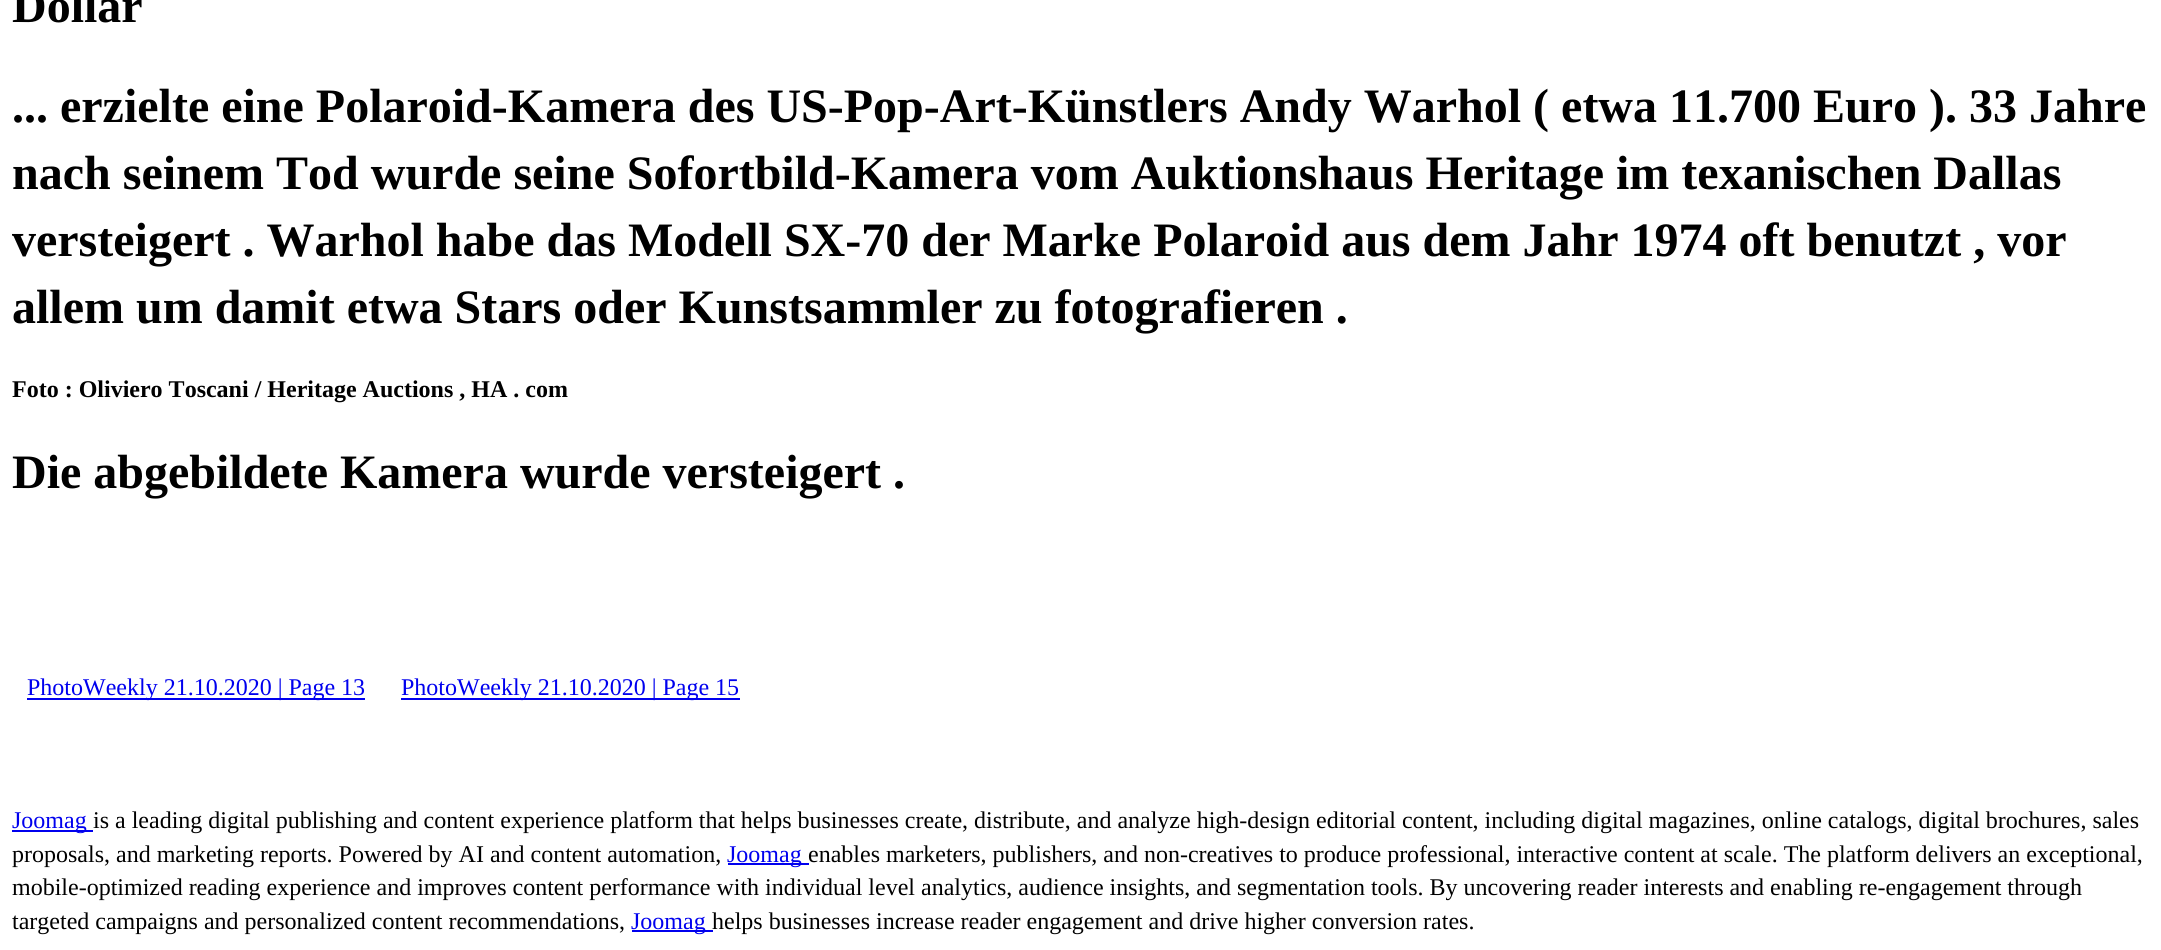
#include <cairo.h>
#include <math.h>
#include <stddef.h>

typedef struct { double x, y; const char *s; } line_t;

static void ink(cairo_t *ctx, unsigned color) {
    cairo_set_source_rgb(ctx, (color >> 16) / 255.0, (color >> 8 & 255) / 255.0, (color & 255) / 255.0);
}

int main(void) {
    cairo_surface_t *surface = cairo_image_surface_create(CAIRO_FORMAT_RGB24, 2161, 950);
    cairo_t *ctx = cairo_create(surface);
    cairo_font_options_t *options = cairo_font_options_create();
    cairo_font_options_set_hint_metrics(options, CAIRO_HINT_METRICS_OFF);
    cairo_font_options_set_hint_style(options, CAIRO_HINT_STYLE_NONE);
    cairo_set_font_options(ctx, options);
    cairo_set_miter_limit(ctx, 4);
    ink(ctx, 0xFFFFFF);
    cairo_paint(ctx);
    cairo_select_font_face(ctx, "Liberation Serif", CAIRO_FONT_SLANT_NORMAL, CAIRO_FONT_WEIGHT_BOLD);
    cairo_set_font_size(ctx, 48);
    ink(ctx, 0x000000);
    {
        static const line_t items[] = {
            {12, 22, "Dollar"},
            {12, 122, "... erzielte eine Polaroid-Kamera des US-Pop-Art-Künstlers Andy Warhol ( etwa 11.700 Euro ). 33 Jahre"},
            {12, 189, "nach seinem Tod wurde seine Sofortbild-Kamera vom Auktionshaus Heritage im texanischen Dallas"},
            {12, 256, "versteigert . Warhol habe das Modell SX-70 der Marke Polaroid aus dem Jahr 1974 oft benutzt , vor"},
            {12, 323, "allem um damit etwa Stars oder Kunstsammler zu fotografieren ."},
        };
        for (size_t i = 0; i < sizeof items / sizeof *items; i++) {
            cairo_move_to(ctx, items[i].x, items[i].y);
            cairo_show_text(ctx, items[i].s);
        }
    }
    cairo_set_font_size(ctx, 24);
    cairo_move_to(ctx, 12, 397);
    cairo_show_text(ctx, "Foto : Oliviero Toscani / Heritage Auctions , HA . com");
    cairo_set_font_size(ctx, 48);
    cairo_move_to(ctx, 12, 488);
    cairo_show_text(ctx, "Die abgebildete Kamera wurde versteigert .");
    ink(ctx, 0x0000EE);
    cairo_rectangle(ctx, 27, 698, 338, 2);
    cairo_fill(ctx);
    cairo_select_font_face(ctx, "Liberation Serif", CAIRO_FONT_SLANT_NORMAL, CAIRO_FONT_WEIGHT_NORMAL);
    cairo_set_font_size(ctx, 24);
    cairo_move_to(ctx, 27, 695);
    cairo_show_text(ctx, "PhotoWeekly 21.10.2020 | Page 13");
    cairo_rectangle(ctx, 401, 698, 339, 2);
    cairo_fill(ctx);
    cairo_move_to(ctx, 401, 695);
    cairo_show_text(ctx, "PhotoWeekly 21.10.2020 | Page 15");
    cairo_rectangle(ctx, 12, 830, 81, 2);
    cairo_fill(ctx);
    cairo_move_to(ctx, 12, 828);
    cairo_show_text(ctx, "Joomag");
    ink(ctx, 0x000000);
    cairo_move_to(ctx, 93, 828);
    cairo_show_text(ctx, "is a leading digital publishing and content experience platform that helps businesses create, distribute, and analyze high-design editorial content, including digital magazines, online catalogs, digital brochures, sales");
    cairo_move_to(ctx, 12, 862);
    cairo_show_text(ctx, "proposals, and marketing reports. Powered by AI and content automation,");
    ink(ctx, 0x0000EE);
    cairo_rectangle(ctx, 728, 863, 81, 2);
    cairo_fill(ctx);
    cairo_move_to(ctx, 727, 862);
    cairo_show_text(ctx, "Joomag");
    ink(ctx, 0x000000);
    {
        static const line_t items[] = {
            {808, 862, "enables marketers, publishers, and non-creatives to produce professional, interactive content at scale. The platform delivers an exceptional,"},
            {12, 895, "mobile-optimized reading experience and improves content performance with individual level analytics, audience insights, and segmentation tools. By uncovering reader interests and enabling re-engagement through"},
            {12, 929, "targeted campaigns and personalized content recommendations,"},
        };
        for (size_t i = 0; i < sizeof items / sizeof *items; i++) {
            cairo_move_to(ctx, items[i].x, items[i].y);
            cairo_show_text(ctx, items[i].s);
        }
    }
    ink(ctx, 0x0000EE);
    cairo_rectangle(ctx, 632, 930, 81, 2);
    cairo_fill(ctx);
    cairo_move_to(ctx, 631, 929);
    cairo_show_text(ctx, "Joomag");
    ink(ctx, 0x000000);
    cairo_move_to(ctx, 712, 929);
    cairo_show_text(ctx, "helps businesses increase reader engagement and drive higher conversion rates.");
    cairo_surface_write_to_png(surface, "image.png");
    cairo_font_options_destroy(options);
    cairo_destroy(ctx);
    cairo_surface_destroy(surface);
    return 0;
}
